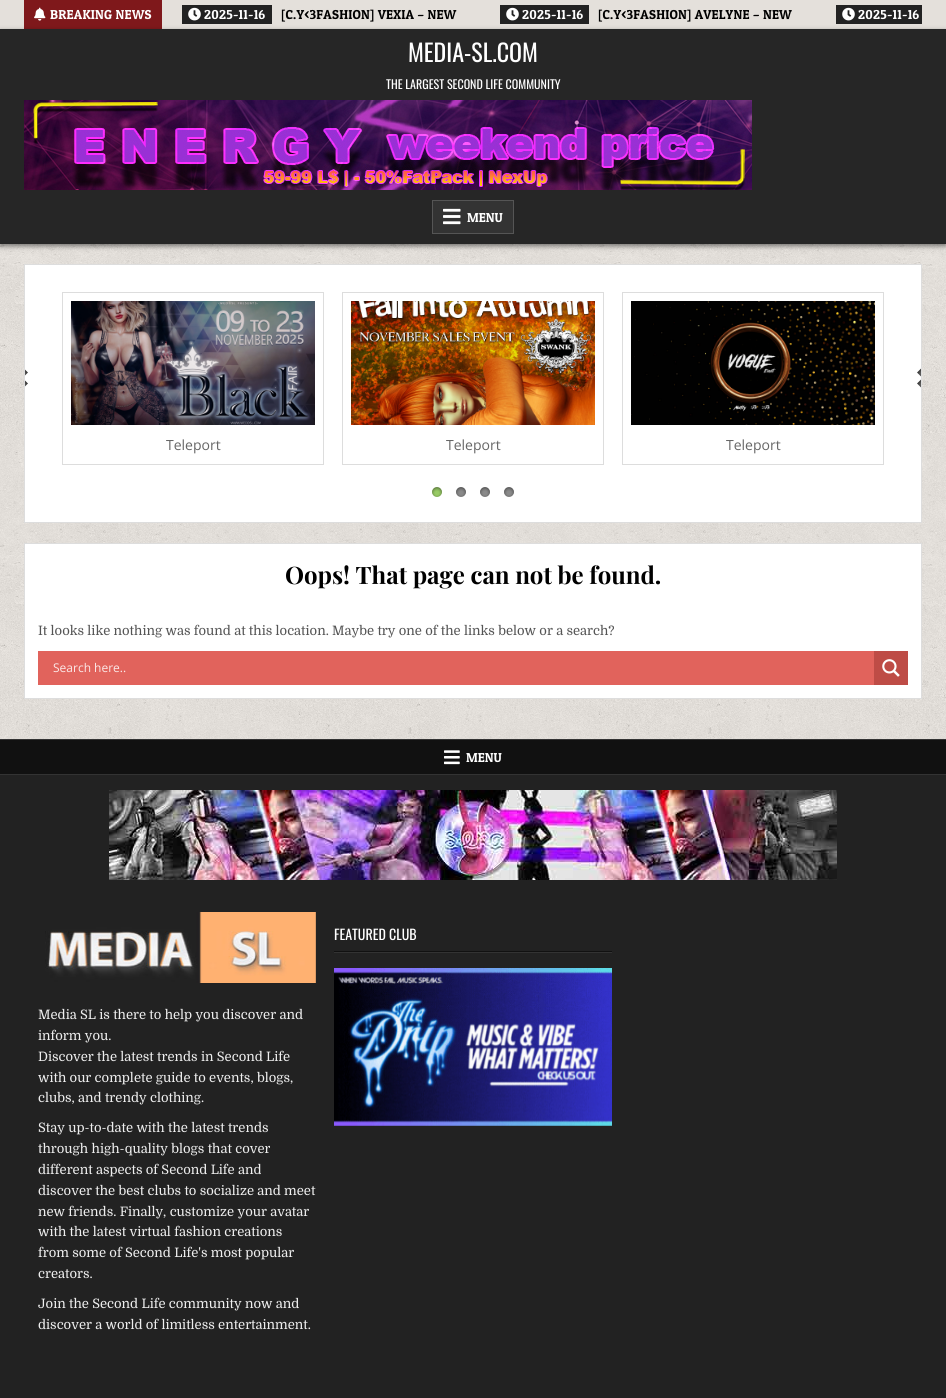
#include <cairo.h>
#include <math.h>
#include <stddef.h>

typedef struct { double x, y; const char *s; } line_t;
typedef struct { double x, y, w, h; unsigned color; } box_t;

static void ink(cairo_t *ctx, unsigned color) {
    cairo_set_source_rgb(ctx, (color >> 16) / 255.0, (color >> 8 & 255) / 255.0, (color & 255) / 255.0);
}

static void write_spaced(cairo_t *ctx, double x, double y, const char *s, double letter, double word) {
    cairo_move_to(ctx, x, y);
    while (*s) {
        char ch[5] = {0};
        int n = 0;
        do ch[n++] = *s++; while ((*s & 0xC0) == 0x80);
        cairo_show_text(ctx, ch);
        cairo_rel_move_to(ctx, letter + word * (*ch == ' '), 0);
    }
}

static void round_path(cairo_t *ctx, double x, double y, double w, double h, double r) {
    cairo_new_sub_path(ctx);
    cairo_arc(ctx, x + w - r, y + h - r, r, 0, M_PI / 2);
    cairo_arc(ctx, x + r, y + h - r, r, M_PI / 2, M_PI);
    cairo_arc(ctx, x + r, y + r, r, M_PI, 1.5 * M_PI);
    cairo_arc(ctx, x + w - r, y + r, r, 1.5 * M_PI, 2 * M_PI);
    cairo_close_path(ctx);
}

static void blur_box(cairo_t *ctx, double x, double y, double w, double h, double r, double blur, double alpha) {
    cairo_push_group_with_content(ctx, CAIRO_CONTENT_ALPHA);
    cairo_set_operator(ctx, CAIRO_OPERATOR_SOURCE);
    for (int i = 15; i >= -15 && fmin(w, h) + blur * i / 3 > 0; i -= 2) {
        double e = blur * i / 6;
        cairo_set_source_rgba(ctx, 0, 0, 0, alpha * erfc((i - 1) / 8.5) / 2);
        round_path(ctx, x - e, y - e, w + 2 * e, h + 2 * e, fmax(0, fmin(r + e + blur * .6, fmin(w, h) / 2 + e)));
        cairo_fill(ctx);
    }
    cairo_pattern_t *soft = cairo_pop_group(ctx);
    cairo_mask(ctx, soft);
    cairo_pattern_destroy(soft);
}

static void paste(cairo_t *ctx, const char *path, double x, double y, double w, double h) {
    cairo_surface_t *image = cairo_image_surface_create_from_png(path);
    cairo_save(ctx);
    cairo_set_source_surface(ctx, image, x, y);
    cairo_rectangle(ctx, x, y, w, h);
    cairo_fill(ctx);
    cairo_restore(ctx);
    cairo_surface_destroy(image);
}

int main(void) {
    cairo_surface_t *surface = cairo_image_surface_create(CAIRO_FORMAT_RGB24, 946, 1398);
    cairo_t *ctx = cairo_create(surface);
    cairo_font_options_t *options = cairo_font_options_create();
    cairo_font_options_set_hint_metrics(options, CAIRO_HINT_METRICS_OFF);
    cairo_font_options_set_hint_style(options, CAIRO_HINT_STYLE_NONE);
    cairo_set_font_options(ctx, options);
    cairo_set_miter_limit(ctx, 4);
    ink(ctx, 0xFFFFFF);
    cairo_paint(ctx);
    paste(ctx, "media/1.png", 0, 244, 946, 495);
    ink(ctx, 0xE4E0DB);
    cairo_rectangle(ctx, 0, 0, 946, 29);
    cairo_fill(ctx);
    ink(ctx, 0x7F181B);
    cairo_rectangle(ctx, 24, 0, 138, 29);
    cairo_fill(ctx);
    paste(ctx, "media/2.png", 34, 7, 12, 14);
    cairo_select_font_face(ctx, "Patua One", CAIRO_FONT_SLANT_NORMAL, CAIRO_FONT_WEIGHT_NORMAL);
    cairo_set_font_size(ctx, 13);
    ink(ctx, 0xFFFFFF);
    write_spaced(ctx, 50, 19, "BREAKING NEWS", 0.2, 0);
    ink(ctx, 0x222222);
    cairo_rectangle(ctx, 182, 5, 90, 19);
    cairo_fill(ctx);
    paste(ctx, "media/3.png", 188, 7, 13, 14);
    ink(ctx, 0xFFFFFF);
    write_spaced(ctx, 204, 19, "2025-11-16", 0.2, 0);
    ink(ctx, 0x000000);
    write_spaced(ctx, 281, 19, "[C.Y<3FASHION] VEXIA – NEW", 0.2, 0);
    ink(ctx, 0x222222);
    cairo_rectangle(ctx, 500, 5, 89, 19);
    cairo_fill(ctx);
    paste(ctx, "media/3.png", 506, 7, 13, 14);
    ink(ctx, 0xFFFFFF);
    write_spaced(ctx, 522, 19, "2025-11-16", 0.2, 0);
    ink(ctx, 0x000000);
    write_spaced(ctx, 598, 19, "[C.Y<3FASHION] AVELYNE – NEW", 0.2, 0);
    ink(ctx, 0x222222);
    cairo_rectangle(ctx, 836, 5, 86, 19);
    cairo_fill(ctx);
    paste(ctx, "media/3.png", 842, 7, 13, 14);
    ink(ctx, 0xFFFFFF);
    write_spaced(ctx, 858, 19, "2025-11-16", 0.2, 0);
    ink(ctx, 0x000000);
    blur_box(ctx, 0, 31, 946, 215, 0, 2.5, 0.5);
    ink(ctx, 0x262626);
    cairo_rectangle(ctx, 0, 29, 946, 215);
    cairo_fill(ctx);
    cairo_select_font_face(ctx, "Oswald", CAIRO_FONT_SLANT_NORMAL, CAIRO_FONT_WEIGHT_NORMAL);
    cairo_set_font_size(ctx, 24);
    ink(ctx, 0xFFFFFF);
    cairo_move_to(ctx, 408, 62);
    cairo_show_text(ctx, "MEDIA-SL.COM");
    cairo_set_font_size(ctx, 12);
    cairo_move_to(ctx, 386, 89);
    cairo_show_text(ctx, "THE LARGEST SECOND LIFE COMMUNITY");
    paste(ctx, "media/4.png", 24, 100, 728, 90);
    ink(ctx, 0x333333);
    cairo_rectangle(ctx, 432.5, 200.5, 81, 33);
    cairo_fill_preserve(ctx);
    ink(ctx, 0x555555);
    cairo_set_line_width(ctx, 1);
    cairo_stroke(ctx);
    paste(ctx, "media/5.png", 443, 208, 18, 17);
    cairo_select_font_face(ctx, "Patua One", CAIRO_FONT_SLANT_NORMAL, CAIRO_FONT_WEIGHT_NORMAL);
    cairo_set_font_size(ctx, 13);
    ink(ctx, 0xFFFFFF);
    cairo_move_to(ctx, 467, 222);
    cairo_show_text(ctx, "MENU");
    cairo_rectangle(ctx, 24.5, 264.5, 897, 258);
    cairo_fill_preserve(ctx);
    ink(ctx, 0xDDDDDD);
    cairo_stroke(ctx);
    paste(ctx, "media/6.png", 25, 369, 3, 18);
    paste(ctx, "media/7.png", 917, 368, 4, 20);
    cairo_rectangle(ctx, 62.5, 292.5, 261, 172);
    cairo_stroke(ctx);
    paste(ctx, "media/8.png", 71, 301, 244, 124);
    cairo_select_font_face(ctx, "Open Sans", CAIRO_FONT_SLANT_NORMAL, CAIRO_FONT_WEIGHT_NORMAL);
    cairo_set_font_size(ctx, 14);
    ink(ctx, 0x666666);
    cairo_move_to(ctx, 166, 450);
    cairo_show_text(ctx, "Teleport");
    cairo_rectangle(ctx, 342.5, 292.5, 261, 172);
    ink(ctx, 0xDDDDDD);
    cairo_stroke(ctx);
    paste(ctx, "media/9.png", 351, 301, 244, 124);
    ink(ctx, 0x666666);
    cairo_move_to(ctx, 446, 450);
    cairo_show_text(ctx, "Teleport");
    cairo_rectangle(ctx, 622.5, 292.5, 261, 172);
    ink(ctx, 0xDDDDDD);
    cairo_stroke(ctx);
    paste(ctx, "media/10.png", 631, 301, 244, 124);
    ink(ctx, 0x666666);
    cairo_move_to(ctx, 726, 450);
    cairo_show_text(ctx, "Teleport");
    paste(ctx, "media/11.png", 432, 487, 10, 10);
    paste(ctx, "media/12.png", 456, 487, 10, 10);
    paste(ctx, "media/12.png", 480, 487, 10, 10);
    paste(ctx, "media/12.png", 504, 487, 10, 10);
    ink(ctx, 0xFFFFFF);
    cairo_rectangle(ctx, 24.5, 543.5, 897, 155);
    cairo_fill_preserve(ctx);
    ink(ctx, 0xDDDDDD);
    cairo_stroke(ctx);
    cairo_select_font_face(ctx, "Playfair Display", CAIRO_FONT_SLANT_NORMAL, CAIRO_FONT_WEIGHT_BOLD);
    cairo_set_font_size(ctx, 24);
    ink(ctx, 0x000000);
    cairo_move_to(ctx, 285, 584);
    cairo_show_text(ctx, "Oops! That page can not be found.");
    cairo_select_font_face(ctx, "Domine", CAIRO_FONT_SLANT_NORMAL, CAIRO_FONT_WEIGHT_NORMAL);
    cairo_set_font_size(ctx, 13);
    ink(ctx, 0x555555);
    cairo_move_to(ctx, 38, 635);
    cairo_show_text(ctx, "It looks like nothing was found at this location. Maybe try one of the links below or a search?");
    ink(ctx, 0xE1635C);
    cairo_rectangle(ctx, 38, 651, 836, 34);
    cairo_fill(ctx);
    cairo_select_font_face(ctx, "Open Sans", CAIRO_FONT_SLANT_NORMAL, CAIRO_FONT_WEIGHT_NORMAL);
    cairo_set_font_size(ctx, 12);
    ink(ctx, 0xFBE8E7);
    cairo_move_to(ctx, 53, 672);
    cairo_show_text(ctx, "Search here..");
    ink(ctx, 0xBE4C46);
    cairo_rectangle(ctx, 874, 651, 34, 34);
    cairo_fill(ctx);
    paste(ctx, "media/13.png", 882, 659, 18, 18);
    {
        static const box_t items[] = {
            {0, 740, 946, 34, 0x111111},
            {0, 739, 946, 1, 0x333333},
            {0, 774, 946, 1, 0x333333},
        };
        for (size_t i = 0; i < sizeof items / sizeof *items; i++) {
            ink(ctx, items[i].color);
            cairo_rectangle(ctx, items[i].x, items[i].y, items[i].w, items[i].h);
            cairo_fill(ctx);
        }
    }
    paste(ctx, "media/14.png", 444, 750, 16, 15);
    cairo_select_font_face(ctx, "Patua One", CAIRO_FONT_SLANT_NORMAL, CAIRO_FONT_WEIGHT_NORMAL);
    cairo_set_font_size(ctx, 13);
    ink(ctx, 0xFFFFFF);
    cairo_move_to(ctx, 466, 762);
    cairo_show_text(ctx, "MENU");
    ink(ctx, 0x222222);
    cairo_rectangle(ctx, 0, 775, 946, 623);
    cairo_fill(ctx);
    paste(ctx, "media/15.png", 109, 790, 728, 90);
    ink(ctx, 0x333333);
    cairo_rectangle(ctx, 334, 952, 278, 1);
    cairo_fill(ctx);
    ink(ctx, 0x111111);
    cairo_rectangle(ctx, 334, 951, 278, 1);
    cairo_fill(ctx);
    cairo_select_font_face(ctx, "Oswald", CAIRO_FONT_SLANT_NORMAL, CAIRO_FONT_WEIGHT_NORMAL);
    cairo_set_font_size(ctx, 14);
    ink(ctx, 0xFFFFFF);
    cairo_move_to(ctx, 334, 940);
    cairo_show_text(ctx, "FEATURED CLUB");
    paste(ctx, "media/16.png", 334, 968, 278, 158);
    paste(ctx, "media/17.png", 45, 912, 271, 71);
    cairo_select_font_face(ctx, "Domine", CAIRO_FONT_SLANT_NORMAL, CAIRO_FONT_WEIGHT_NORMAL);
    cairo_set_font_size(ctx, 13);
    ink(ctx, 0xEEEEEE);
    {
        static const line_t items[] = {
            {38, 1019, "Media SL is there to help you discover and"},
            {38, 1040, "inform you."},
            {38, 1061, "Discover the latest trends in Second Life"},
            {38, 1082, "with our complete guide to events, blogs,"},
            {38, 1102, "clubs, and trendy clothing."},
            {38, 1132, "Stay up-to-date with the latest trends"},
            {38, 1153, "through high-quality blogs that cover"},
            {38, 1174, "different aspects of Second Life and"},
            {38, 1195, "discover the best clubs to socialize and meet"},
            {38, 1216, "new friends. Finally, customize your avatar"},
            {38, 1236, "with the latest virtual fashion creations"},
            {38, 1257, "from some of Second Life's most popular"},
            {38, 1278, "creators."},
            {38, 1308, "Join the Second Life community now and"},
            {38, 1329, "discover a world of limitless entertainment."},
        };
        for (size_t i = 0; i < sizeof items / sizeof *items; i++) {
            cairo_move_to(ctx, items[i].x, items[i].y);
            cairo_show_text(ctx, items[i].s);
        }
    }
    cairo_surface_write_to_png(surface, "image.png");
    cairo_font_options_destroy(options);
    cairo_destroy(ctx);
    cairo_surface_destroy(surface);
    return 0;
}
